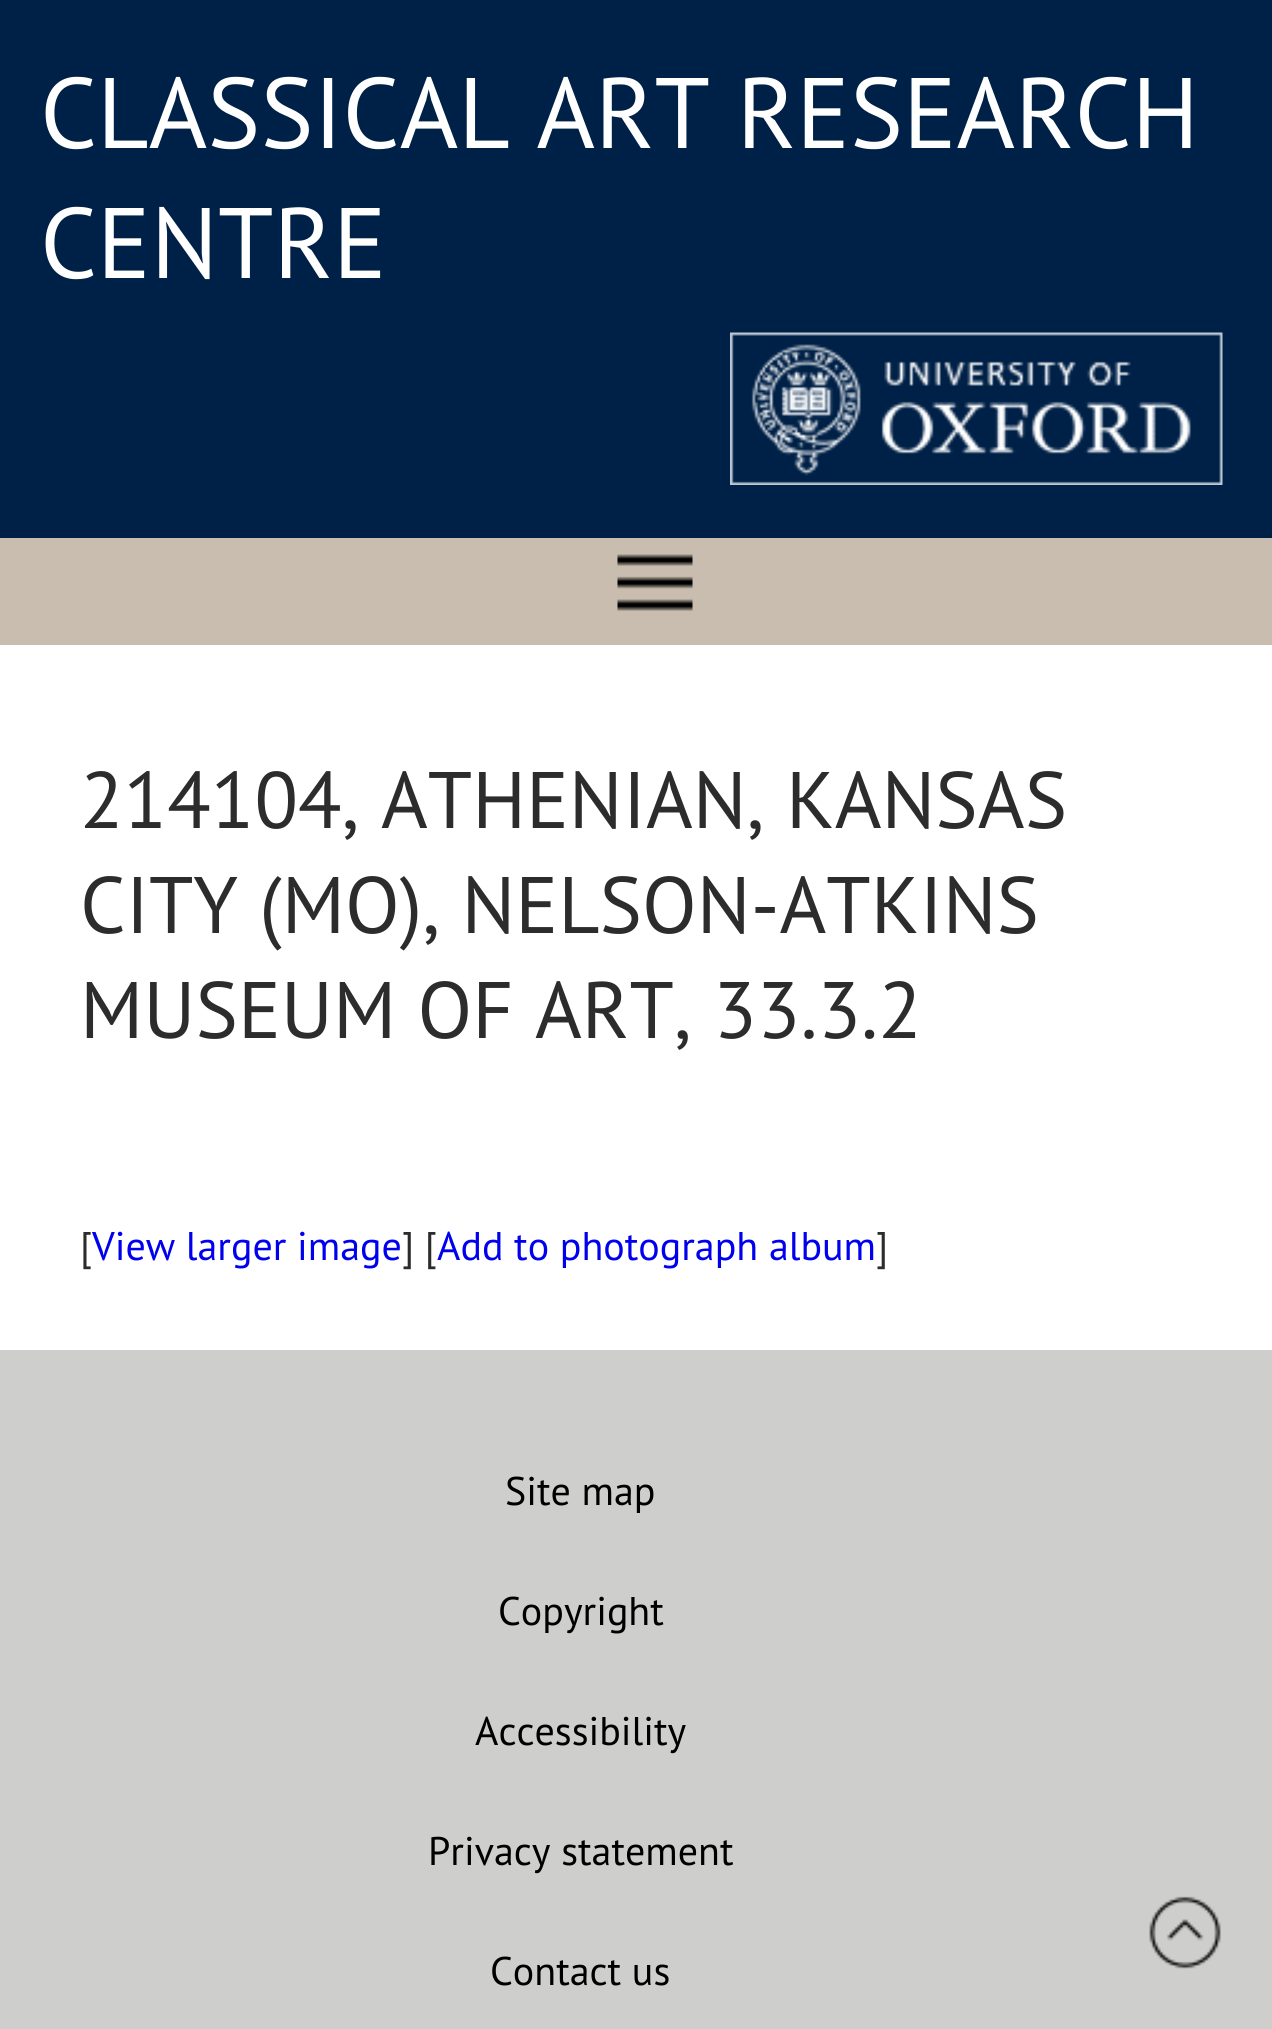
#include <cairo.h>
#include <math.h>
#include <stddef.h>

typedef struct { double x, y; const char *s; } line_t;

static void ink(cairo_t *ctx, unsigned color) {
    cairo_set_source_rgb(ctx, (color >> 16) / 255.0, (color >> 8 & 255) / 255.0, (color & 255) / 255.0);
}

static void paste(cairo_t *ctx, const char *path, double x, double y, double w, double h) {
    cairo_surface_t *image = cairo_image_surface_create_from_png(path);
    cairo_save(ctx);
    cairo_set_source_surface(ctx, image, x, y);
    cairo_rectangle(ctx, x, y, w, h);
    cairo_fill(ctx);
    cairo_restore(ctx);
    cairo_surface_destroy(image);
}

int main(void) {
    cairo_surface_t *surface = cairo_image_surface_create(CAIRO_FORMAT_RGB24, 1272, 2029);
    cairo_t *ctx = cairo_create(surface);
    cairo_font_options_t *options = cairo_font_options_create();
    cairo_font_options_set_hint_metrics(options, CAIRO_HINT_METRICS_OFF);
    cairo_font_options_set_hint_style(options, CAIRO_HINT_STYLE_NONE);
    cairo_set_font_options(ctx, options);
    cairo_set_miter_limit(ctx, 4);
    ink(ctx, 0xFFFFFF);
    cairo_paint(ctx);
    ink(ctx, 0x002147);
    cairo_rectangle(ctx, 0, 0, 1272, 538);
    cairo_fill(ctx);
    cairo_select_font_face(ctx, "PT Sans", CAIRO_FONT_SLANT_NORMAL, CAIRO_FONT_WEIGHT_NORMAL);
    cairo_set_font_size(ctx, 100);
    ink(ctx, 0xFFFFFF);
    cairo_move_to(ctx, 40, 148);
    cairo_show_text(ctx, "CLASSICAL ART RESEARCH");
    cairo_move_to(ctx, 40, 278);
    cairo_show_text(ctx, "CENTRE");
    paste(ctx, "media/1.png", 730, 332, 493, 153);
    ink(ctx, 0xC8BDAE);
    cairo_rectangle(ctx, 0, 538, 1272, 107);
    cairo_fill(ctx);
    paste(ctx, "media/2.png", 617, 554, 76, 57);
    cairo_set_font_size(ctx, 80);
    ink(ctx, 0x2C2C2C);
    {
        static const line_t items[] = {
            {80, 828, "214104, ATHENIAN, KANSAS"},
            {80, 933, "CITY (MO), NELSON-ATKINS"},
            {80, 1038, "MUSEUM OF ART, 33.3.2"},
        };
        for (size_t i = 0; i < sizeof items / sizeof *items; i++) {
            cairo_move_to(ctx, items[i].x, items[i].y);
            cairo_show_text(ctx, items[i].s);
        }
    }
    cairo_set_font_size(ctx, 40);
    cairo_move_to(ctx, 80, 1260);
    cairo_show_text(ctx, "[");
    ink(ctx, 0x0000EE);
    cairo_move_to(ctx, 92, 1260);
    cairo_show_text(ctx, "View larger image");
    ink(ctx, 0x2C2C2C);
    cairo_move_to(ctx, 402, 1260);
    cairo_show_text(ctx, "] [");
    ink(ctx, 0x0000EE);
    cairo_move_to(ctx, 437, 1260);
    cairo_show_text(ctx, "Add to photograph album");
    ink(ctx, 0x2C2C2C);
    cairo_move_to(ctx, 876, 1260);
    cairo_show_text(ctx, "]");
    ink(ctx, 0xCECECC);
    cairo_rectangle(ctx, 0, 1350, 1272, 679);
    cairo_fill(ctx);
    ink(ctx, 0x000000);
    {
        static const line_t items[] = {
            {505, 1505, "Site map"},
            {498, 1625, "Copyright"},
            {475, 1745, "Accessibility"},
            {428, 1865, "Privacy statement"},
            {490, 1985, "Contact us"},
        };
        for (size_t i = 0; i < sizeof items / sizeof *items; i++) {
            cairo_move_to(ctx, items[i].x, items[i].y);
            cairo_show_text(ctx, items[i].s);
        }
    }
    paste(ctx, "media/3.png", 1149, 1896, 72, 73);
    cairo_surface_write_to_png(surface, "image.png");
    cairo_font_options_destroy(options);
    cairo_destroy(ctx);
    cairo_surface_destroy(surface);
    return 0;
}
